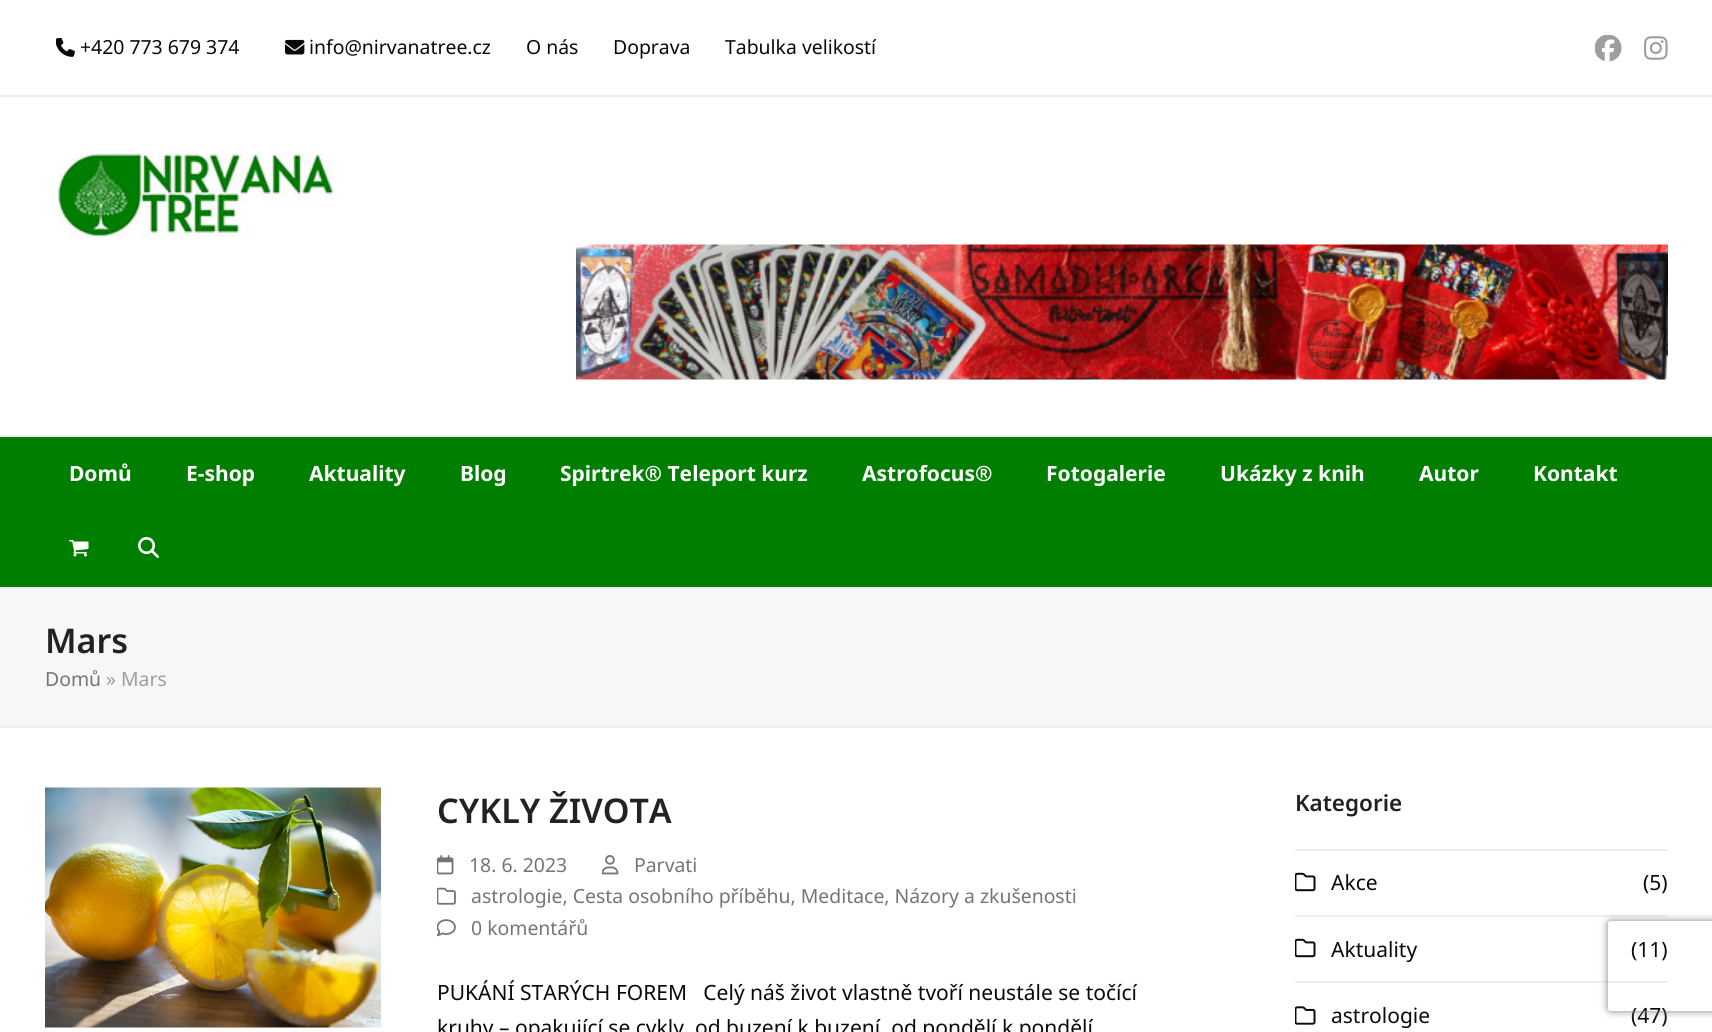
#include <cairo.h>
#include <math.h>
#include <stddef.h>

typedef struct { double x, y; const char *s; } line_t;
typedef struct { double x, y, w, h; unsigned color; } box_t;

static void ink(cairo_t *ctx, unsigned color) {
    cairo_set_source_rgb(ctx, (color >> 16) / 255.0, (color >> 8 & 255) / 255.0, (color & 255) / 255.0);
}

static void round_path(cairo_t *ctx, double x, double y, double w, double h, double r) {
    cairo_new_sub_path(ctx);
    cairo_arc(ctx, x + w - r, y + h - r, r, 0, M_PI / 2);
    cairo_arc(ctx, x + r, y + h - r, r, M_PI / 2, M_PI);
    cairo_arc(ctx, x + r, y + r, r, M_PI, 1.5 * M_PI);
    cairo_arc(ctx, x + w - r, y + r, r, 1.5 * M_PI, 2 * M_PI);
    cairo_close_path(ctx);
}

static void blur_box(cairo_t *ctx, double x, double y, double w, double h, double r, double blur, double alpha) {
    cairo_push_group_with_content(ctx, CAIRO_CONTENT_ALPHA);
    cairo_set_operator(ctx, CAIRO_OPERATOR_SOURCE);
    for (int i = 15; i >= -15 && fmin(w, h) + blur * i / 3 > 0; i -= 2) {
        double e = blur * i / 6;
        cairo_set_source_rgba(ctx, 0, 0, 0, alpha * erfc((i - 1) / 8.5) / 2);
        round_path(ctx, x - e, y - e, w + 2 * e, h + 2 * e, fmax(0, fmin(r + e + blur * .6, fmin(w, h) / 2 + e)));
        cairo_fill(ctx);
    }
    cairo_pattern_t *soft = cairo_pop_group(ctx);
    cairo_mask(ctx, soft);
    cairo_pattern_destroy(soft);
}

static void paste(cairo_t *ctx, const char *path, double x, double y, double w, double h) {
    cairo_surface_t *image = cairo_image_surface_create_from_png(path);
    cairo_save(ctx);
    cairo_set_source_surface(ctx, image, x, y);
    cairo_rectangle(ctx, x, y, w, h);
    cairo_fill(ctx);
    cairo_restore(ctx);
    cairo_surface_destroy(image);
}

int main(void) {
    cairo_surface_t *surface = cairo_image_surface_create(CAIRO_FORMAT_RGB24, 1712, 1032);
    cairo_t *ctx = cairo_create(surface);
    cairo_font_options_t *options = cairo_font_options_create();
    cairo_font_options_set_hint_metrics(options, CAIRO_HINT_METRICS_OFF);
    cairo_font_options_set_hint_style(options, CAIRO_HINT_STYLE_NONE);
    cairo_set_font_options(ctx, options);
    cairo_set_miter_limit(ctx, 4);
    ink(ctx, 0xFFFFFF);
    cairo_paint(ctx);
    ink(ctx, 0xEEEEEE);
    cairo_rectangle(ctx, 0, 95, 1712, 2);
    cairo_fill(ctx);
    paste(ctx, "media/1.png", 56, 38, 19, 19);
    cairo_select_font_face(ctx, "Noto Sans", CAIRO_FONT_SLANT_NORMAL, CAIRO_FONT_WEIGHT_NORMAL);
    cairo_set_font_size(ctx, 19.4);
    ink(ctx, 0x0A0A0A);
    cairo_move_to(ctx, 80, 54);
    cairo_show_text(ctx, "+420 773 679 374");
    paste(ctx, "media/2.png", 285, 39, 20, 16);
    {
        static const line_t items[] = {
            {309, 54, "info@nirvanatree.cz"},
            {526, 54, "O nás"},
            {613, 54, "Doprava"},
            {725, 54, "Tabulka velikostí"},
        };
        for (size_t i = 0; i < sizeof items / sizeof *items; i++) {
            cairo_move_to(ctx, items[i].x, items[i].y);
            cairo_show_text(ctx, items[i].s);
        }
    }
    paste(ctx, "media/3.png", 1595, 35, 27, 27);
    paste(ctx, "media/4.png", 1644, 36, 24, 24);
    paste(ctx, "media/5.png", 57, 153, 277, 84);
    paste(ctx, "media/6.png", 576, 244, 1092, 136);
    ink(ctx, 0x007E00);
    cairo_rectangle(ctx, 0, 437, 1712, 150);
    cairo_fill(ctx);
    ink(ctx, 0xEEEEEE);
    cairo_rectangle(ctx, 0, 435, 1712, 2);
    cairo_fill(ctx);
    cairo_select_font_face(ctx, "Noto Sans", CAIRO_FONT_SLANT_NORMAL, CAIRO_FONT_WEIGHT_BOLD);
    cairo_set_font_size(ctx, 21);
    ink(ctx, 0xFFFFFF);
    {
        static const line_t items[] = {
            {69, 481, "Domů"},
            {186, 481, "E-shop"},
            {309, 481, "Aktuality"},
            {460, 481, "Blog"},
            {560, 481, "Spirtrek® Teleport kurz"},
            {862, 481, "Astrofocus®"},
            {1046, 481, "Fotogalerie"},
            {1220, 481, "Ukázky z knih"},
            {1419, 481, "Autor"},
            {1533, 481, "Kontakt"},
        };
        for (size_t i = 0; i < sizeof items / sizeof *items; i++) {
            cairo_move_to(ctx, items[i].x, items[i].y);
            cairo_show_text(ctx, items[i].s);
        }
    }
    paste(ctx, "media/7.png", 69, 540, 20, 17);
    paste(ctx, "media/8.png", 138, 537, 21, 21);
    {
        static const box_t items[] = {
            {0, 589, 1712, 137, 0xF7F7F7},
            {0, 587, 1712, 2, 0xEEEEEE},
            {0, 726, 1712, 2, 0xEEEEEE},
        };
        for (size_t i = 0; i < sizeof items / sizeof *items; i++) {
            ink(ctx, items[i].color);
            cairo_rectangle(ctx, items[i].x, items[i].y, items[i].w, items[i].h);
            cairo_fill(ctx);
        }
    }
    cairo_select_font_face(ctx, "Noto Sans SemiBold", CAIRO_FONT_SLANT_NORMAL, CAIRO_FONT_WEIGHT_NORMAL);
    cairo_set_font_size(ctx, 34);
    ink(ctx, 0x222222);
    cairo_move_to(ctx, 45, 653);
    cairo_show_text(ctx, "Mars");
    cairo_select_font_face(ctx, "Noto Sans", CAIRO_FONT_SLANT_NORMAL, CAIRO_FONT_WEIGHT_NORMAL);
    cairo_set_font_size(ctx, 19.4);
    ink(ctx, 0x757575);
    cairo_move_to(ctx, 45, 686);
    cairo_show_text(ctx, "Domů");
    ink(ctx, 0x9E9E9E);
    cairo_move_to(ctx, 106, 686);
    cairo_show_text(ctx, "» Mars");
    paste(ctx, "media/9.png", 45, 787, 336, 241);
    cairo_select_font_face(ctx, "Noto Sans SemiBold", CAIRO_FONT_SLANT_NORMAL, CAIRO_FONT_WEIGHT_NORMAL);
    cairo_set_font_size(ctx, 34);
    ink(ctx, 0x222222);
    cairo_move_to(ctx, 437, 823);
    cairo_show_text(ctx, "CYKLY ŽIVOTA");
    paste(ctx, "media/10.png", 437, 855, 17, 20);
    cairo_select_font_face(ctx, "Noto Sans", CAIRO_FONT_SLANT_NORMAL, CAIRO_FONT_WEIGHT_NORMAL);
    cairo_set_font_size(ctx, 19.4);
    ink(ctx, 0x757575);
    cairo_move_to(ctx, 469, 872);
    cairo_show_text(ctx, "18. 6. 2023");
    paste(ctx, "media/11.png", 602, 855, 17, 20);
    cairo_move_to(ctx, 634, 872);
    cairo_show_text(ctx, "Parvati");
    paste(ctx, "media/12.png", 437, 887, 19, 18);
    cairo_move_to(ctx, 471, 903);
    cairo_show_text(ctx, "astrologie, Cesta osobního příběhu, Meditace, Názory a zkušenosti");
    paste(ctx, "media/13.png", 437, 919, 19, 18);
    cairo_move_to(ctx, 471, 935);
    cairo_show_text(ctx, "0 komentářů");
    cairo_set_font_size(ctx, 21);
    ink(ctx, 0x0A0A0A);
    cairo_move_to(ctx, 437, 1000);
    cairo_show_text(ctx, "PUKÁNÍ STARÝCH FOREM   Celý náš život vlastně tvoří neustále se točící");
    cairo_move_to(ctx, 437, 1035);
    cairo_show_text(ctx, "kruhy – opakující se cykly, od buzení k buzení, od pondělí k pondělí");
    cairo_select_font_face(ctx, "Noto Sans SemiBold", CAIRO_FONT_SLANT_NORMAL, CAIRO_FONT_WEIGHT_NORMAL);
    cairo_set_font_size(ctx, 22.5);
    ink(ctx, 0x222222);
    cairo_move_to(ctx, 1295, 811);
    cairo_show_text(ctx, "Kategorie");
    ink(ctx, 0xEEEEEE);
    cairo_rectangle(ctx, 1295, 849, 373, 2);
    cairo_fill(ctx);
    cairo_rectangle(ctx, 1295, 915, 373, 2);
    cairo_fill(ctx);
    paste(ctx, "media/14.png", 1295, 872, 21, 20);
    cairo_select_font_face(ctx, "Noto Sans", CAIRO_FONT_SLANT_NORMAL, CAIRO_FONT_WEIGHT_NORMAL);
    cairo_set_font_size(ctx, 21);
    ink(ctx, 0x0A0A0A);
    cairo_move_to(ctx, 1331, 890);
    cairo_show_text(ctx, "Akce");
    cairo_move_to(ctx, 1643, 890);
    cairo_show_text(ctx, "(5)");
    ink(ctx, 0xEEEEEE);
    cairo_rectangle(ctx, 1295, 981, 373, 2);
    cairo_fill(ctx);
    paste(ctx, "media/14.png", 1295, 938, 21, 20);
    ink(ctx, 0x0A0A0A);
    cairo_move_to(ctx, 1331, 957);
    cairo_show_text(ctx, "Aktuality");
    cairo_move_to(ctx, 1631, 957);
    cairo_show_text(ctx, "(11)");
    paste(ctx, "media/15.png", 1295, 1006, 21, 19);
    cairo_move_to(ctx, 1331, 1023);
    cairo_show_text(ctx, "astrologie");
    cairo_move_to(ctx, 1631, 1023);
    cairo_show_text(ctx, "(47)");
    cairo_save(ctx);
    cairo_set_fill_rule(ctx, CAIRO_FILL_RULE_EVEN_ODD);
    cairo_new_path(ctx);
    cairo_move_to(ctx, 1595, 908);
    cairo_line_to(ctx, 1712, 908);
    cairo_line_to(ctx, 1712, 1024);
    cairo_line_to(ctx, 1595, 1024);
    cairo_close_path(ctx);
    cairo_move_to(ctx, 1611, 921);
    cairo_line_to(ctx, 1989, 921);
    cairo_curve_to(ctx, 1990.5, 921, 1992, 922.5, 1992, 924);
    cairo_line_to(ctx, 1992, 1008);
    cairo_curve_to(ctx, 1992, 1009.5, 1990.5, 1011, 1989, 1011);
    cairo_line_to(ctx, 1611, 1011);
    cairo_curve_to(ctx, 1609.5, 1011, 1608, 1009.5, 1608, 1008);
    cairo_line_to(ctx, 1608, 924);
    cairo_curve_to(ctx, 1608, 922.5, 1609.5, 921, 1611, 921);
    cairo_close_path(ctx);
    cairo_clip(ctx);
    ink(ctx, 0x808080);
    blur_box(ctx, 1608, 921, 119, 90, 3, 4, 1);
    cairo_restore(ctx);
    cairo_surface_write_to_png(surface, "image.png");
    cairo_font_options_destroy(options);
    cairo_destroy(ctx);
    cairo_surface_destroy(surface);
    return 0;
}
